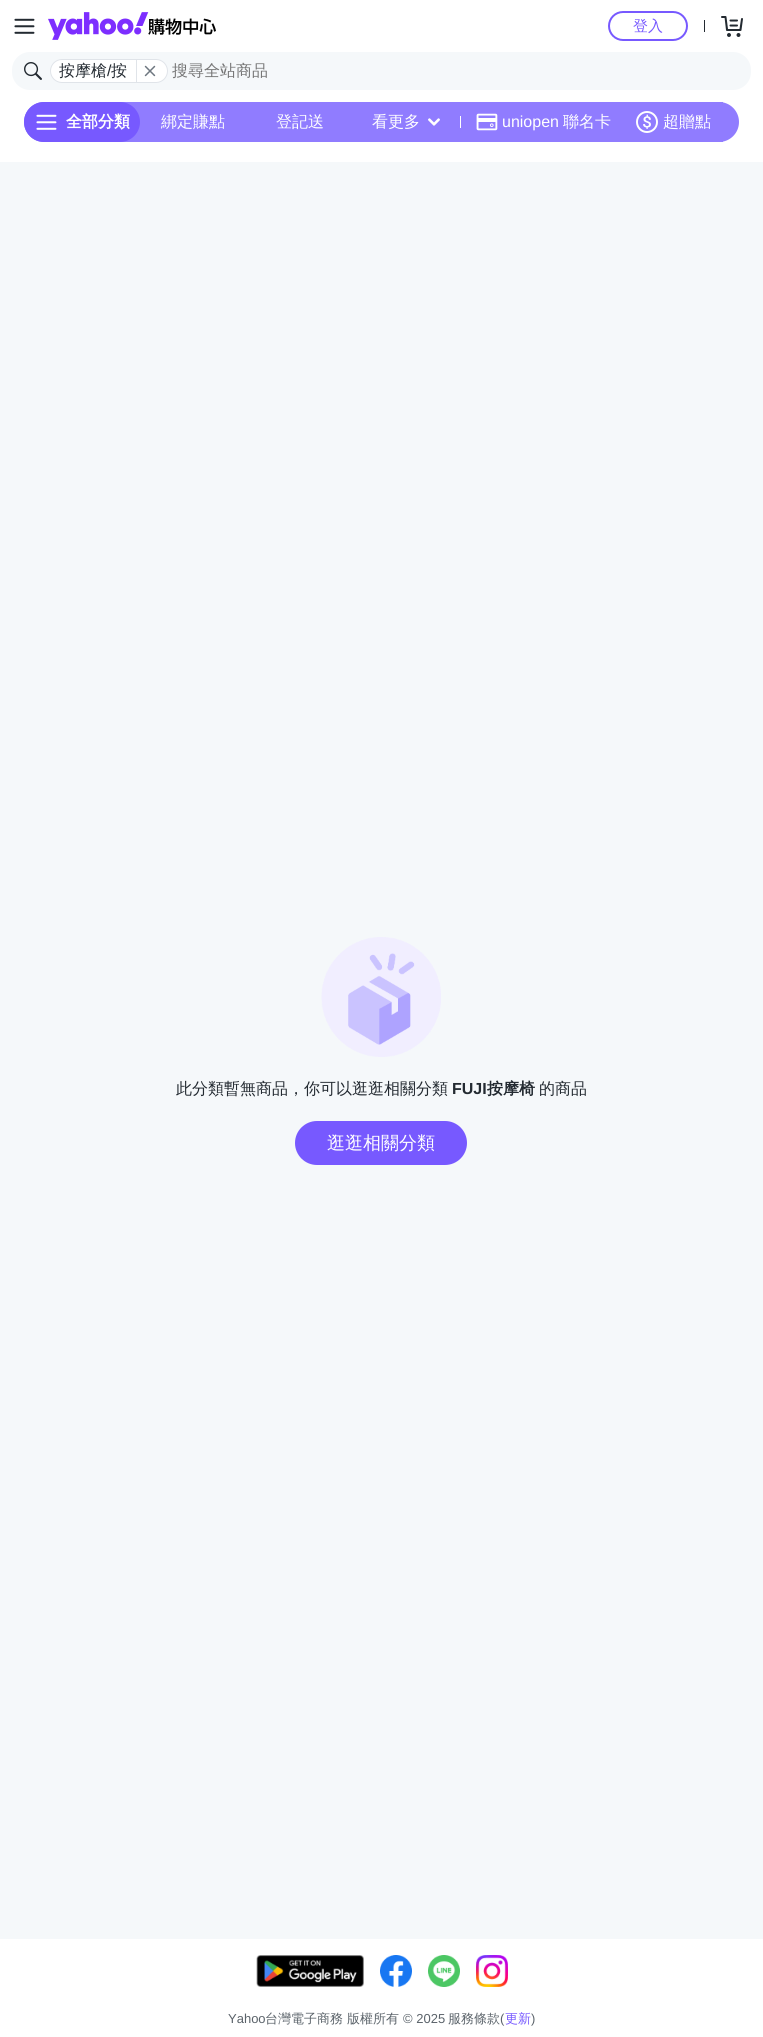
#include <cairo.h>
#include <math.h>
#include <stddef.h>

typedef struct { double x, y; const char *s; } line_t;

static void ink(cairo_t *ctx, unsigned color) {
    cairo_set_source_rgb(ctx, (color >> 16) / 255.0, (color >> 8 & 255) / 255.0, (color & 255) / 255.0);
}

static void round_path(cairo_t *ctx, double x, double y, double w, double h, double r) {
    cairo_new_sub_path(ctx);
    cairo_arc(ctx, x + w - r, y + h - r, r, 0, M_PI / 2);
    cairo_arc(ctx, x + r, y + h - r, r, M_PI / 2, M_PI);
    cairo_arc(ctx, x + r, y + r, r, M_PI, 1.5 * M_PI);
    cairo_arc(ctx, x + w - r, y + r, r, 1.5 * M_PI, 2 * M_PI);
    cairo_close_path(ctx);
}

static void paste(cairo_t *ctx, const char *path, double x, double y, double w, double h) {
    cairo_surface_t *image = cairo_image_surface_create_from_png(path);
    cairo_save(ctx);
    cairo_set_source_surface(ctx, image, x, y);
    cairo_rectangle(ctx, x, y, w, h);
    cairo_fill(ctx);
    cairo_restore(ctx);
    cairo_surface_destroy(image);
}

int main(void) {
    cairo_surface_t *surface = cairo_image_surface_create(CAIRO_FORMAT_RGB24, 763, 2037);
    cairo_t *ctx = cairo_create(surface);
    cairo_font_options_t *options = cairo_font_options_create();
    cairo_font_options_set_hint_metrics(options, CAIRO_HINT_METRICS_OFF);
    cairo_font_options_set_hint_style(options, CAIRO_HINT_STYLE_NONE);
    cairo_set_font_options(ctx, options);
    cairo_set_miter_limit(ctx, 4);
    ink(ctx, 0xFFFFFF);
    cairo_paint(ctx);
    paste(ctx, "media/1.png", 14, 18, 21, 16);
    paste(ctx, "media/2.png", 48, 12, 168, 28);
    round_path(ctx, 609, 12, 78, 28, 14);
    ink(ctx, 0x7759FF);
    cairo_stroke(ctx);
    cairo_select_font_face(ctx, "WenQuanYi Zen Hei Medium", CAIRO_FONT_SLANT_NORMAL, CAIRO_FONT_WEIGHT_NORMAL);
    cairo_set_font_size(ctx, 15);
    cairo_move_to(ctx, 633, 31);
    cairo_show_text(ctx, "登入");
    ink(ctx, 0x232A31);
    cairo_rectangle(ctx, 704, 20, 1, 12);
    cairo_fill(ctx);
    paste(ctx, "media/3.png", 721, 16, 22, 21);
    ink(ctx, 0xF5F8FA);
    round_path(ctx, 12, 52, 739, 38, 18);
    cairo_fill(ctx);
    paste(ctx, "media/4.png", 24, 62, 18, 18);
    ink(ctx, 0xFFFFFF);
    round_path(ctx, 50.5, 59.5, 117, 23, 11.5);
    cairo_fill_preserve(ctx);
    ink(ctx, 0xE0E4E9);
    cairo_set_line_width(ctx, 1);
    cairo_stroke(ctx);
    cairo_rectangle(ctx, 136, 59, 1, 24);
    cairo_fill(ctx);
    cairo_set_font_size(ctx, 16);
    ink(ctx, 0x232A31);
    cairo_move_to(ctx, 59, 76);
    cairo_show_text(ctx, "按摩槍");
    cairo_select_font_face(ctx, "Liberation Sans", CAIRO_FONT_SLANT_NORMAL, CAIRO_FONT_WEIGHT_NORMAL);
    cairo_move_to(ctx, 107, 76);
    cairo_show_text(ctx, "/");
    cairo_select_font_face(ctx, "WenQuanYi Zen Hei Medium", CAIRO_FONT_SLANT_NORMAL, CAIRO_FONT_WEIGHT_NORMAL);
    cairo_move_to(ctx, 111, 76);
    cairo_show_text(ctx, "按");
    paste(ctx, "media/5.png", 144, 65, 12, 12);
    ink(ctx, 0x757575);
    cairo_move_to(ctx, 172, 76);
    cairo_show_text(ctx, "搜尋全站商品");
    ink(ctx, 0x907CFF);
    round_path(ctx, 24, 102, 715, 40, 20);
    cairo_fill(ctx);
    ink(ctx, 0x7759FF);
    round_path(ctx, 24, 102, 116, 40, 20);
    cairo_fill(ctx);
    paste(ctx, "media/6.png", 36, 114, 21, 16);
    cairo_select_font_face(ctx, "WenQuanYi Zen Hei", CAIRO_FONT_SLANT_NORMAL, CAIRO_FONT_WEIGHT_BOLD);
    ink(ctx, 0xFFFFFF);
    cairo_move_to(ctx, 66, 127);
    cairo_show_text(ctx, "全部分類");
    cairo_select_font_face(ctx, "WenQuanYi Zen Hei Medium", CAIRO_FONT_SLANT_NORMAL, CAIRO_FONT_WEIGHT_NORMAL);
    {
        static const line_t items[] = {
            {161, 127, "綁定賺點"},
            {276, 127, "登記送"},
            {372, 127, "看更多"},
        };
        for (size_t i = 0; i < sizeof items / sizeof *items; i++) {
            cairo_move_to(ctx, items[i].x, items[i].y);
            cairo_show_text(ctx, items[i].s);
        }
    }
    paste(ctx, "media/7.png", 428, 118, 12, 8);
    cairo_rectangle(ctx, 460, 116, 1, 12);
    cairo_fill(ctx);
    paste(ctx, "media/8.png", 476, 113, 22, 18);
    cairo_select_font_face(ctx, "Liberation Sans", CAIRO_FONT_SLANT_NORMAL, CAIRO_FONT_WEIGHT_NORMAL);
    cairo_move_to(ctx, 502, 127);
    cairo_show_text(ctx, "uniopen");
    cairo_select_font_face(ctx, "WenQuanYi Zen Hei Medium", CAIRO_FONT_SLANT_NORMAL, CAIRO_FONT_WEIGHT_NORMAL);
    cairo_move_to(ctx, 563, 127);
    cairo_show_text(ctx, "聯名卡");
    ink(ctx, 0x907CFF);
    cairo_rectangle(ctx, 719, 102, 4, 40);
    cairo_fill(ctx);
    paste(ctx, "media/9.png", 636, 111, 22, 22);
    ink(ctx, 0xFFFFFF);
    cairo_move_to(ctx, 663, 127);
    cairo_show_text(ctx, "超贈點");
    ink(ctx, 0xF5F8FA);
    cairo_rectangle(ctx, 0, 162, 763, 1777);
    cairo_fill(ctx);
    paste(ctx, "media/10.png", 321, 937, 120, 120);
    ink(ctx, 0x232A31);
    cairo_move_to(ctx, 176, 1094);
    cairo_show_text(ctx, "此分類暫無商品，你可以逛逛相關分類");
    cairo_select_font_face(ctx, "Liberation Sans", CAIRO_FONT_SLANT_NORMAL, CAIRO_FONT_WEIGHT_BOLD);
    cairo_move_to(ctx, 452, 1094);
    cairo_show_text(ctx, "FUJI");
    cairo_select_font_face(ctx, "WenQuanYi Zen Hei", CAIRO_FONT_SLANT_NORMAL, CAIRO_FONT_WEIGHT_BOLD);
    cairo_move_to(ctx, 487, 1094);
    cairo_show_text(ctx, "按摩椅");
    cairo_select_font_face(ctx, "WenQuanYi Zen Hei Medium", CAIRO_FONT_SLANT_NORMAL, CAIRO_FONT_WEIGHT_NORMAL);
    cairo_move_to(ctx, 539, 1094);
    cairo_show_text(ctx, "的商品");
    ink(ctx, 0x7759FF);
    round_path(ctx, 295, 1121, 172, 44, 22);
    cairo_fill(ctx);
    cairo_set_font_size(ctx, 18);
    ink(ctx, 0xFFFFFF);
    cairo_move_to(ctx, 327, 1149);
    cairo_show_text(ctx, "逛逛相關分類");
    paste(ctx, "media/11.png", 256, 1955, 108, 32);
    paste(ctx, "media/12.png", 380, 1955, 32, 32);
    paste(ctx, "media/13.png", 428, 1955, 32, 32);
    paste(ctx, "media/14.png", 476, 1955, 32, 32);
    cairo_select_font_face(ctx, "Liberation Sans", CAIRO_FONT_SLANT_NORMAL, CAIRO_FONT_WEIGHT_NORMAL);
    cairo_set_font_size(ctx, 13);
    ink(ctx, 0x5B636A);
    cairo_move_to(ctx, 228, 2023);
    cairo_show_text(ctx, "Yahoo");
    cairo_select_font_face(ctx, "WenQuanYi Zen Hei Medium", CAIRO_FONT_SLANT_NORMAL, CAIRO_FONT_WEIGHT_NORMAL);
    cairo_move_to(ctx, 265, 2023);
    cairo_show_text(ctx, "台灣電子商務 版權所有");
    cairo_select_font_face(ctx, "Liberation Sans", CAIRO_FONT_SLANT_NORMAL, CAIRO_FONT_WEIGHT_NORMAL);
    cairo_move_to(ctx, 403, 2023);
    cairo_show_text(ctx, "© 2025");
    cairo_select_font_face(ctx, "WenQuanYi Zen Hei Medium", CAIRO_FONT_SLANT_NORMAL, CAIRO_FONT_WEIGHT_NORMAL);
    cairo_move_to(ctx, 448, 2023);
    cairo_show_text(ctx, "服務條款");
    cairo_select_font_face(ctx, "Liberation Sans", CAIRO_FONT_SLANT_NORMAL, CAIRO_FONT_WEIGHT_NORMAL);
    cairo_move_to(ctx, 500, 2023);
    cairo_show_text(ctx, "(");
    cairo_select_font_face(ctx, "WenQuanYi Zen Hei Medium", CAIRO_FONT_SLANT_NORMAL, CAIRO_FONT_WEIGHT_NORMAL);
    ink(ctx, 0x7759FF);
    cairo_move_to(ctx, 505, 2023);
    cairo_show_text(ctx, "更新");
    cairo_select_font_face(ctx, "Liberation Sans", CAIRO_FONT_SLANT_NORMAL, CAIRO_FONT_WEIGHT_NORMAL);
    ink(ctx, 0x5B636A);
    cairo_move_to(ctx, 531, 2023);
    cairo_show_text(ctx, ")");
    cairo_surface_write_to_png(surface, "image.png");
    cairo_font_options_destroy(options);
    cairo_destroy(ctx);
    cairo_surface_destroy(surface);
    return 0;
}
